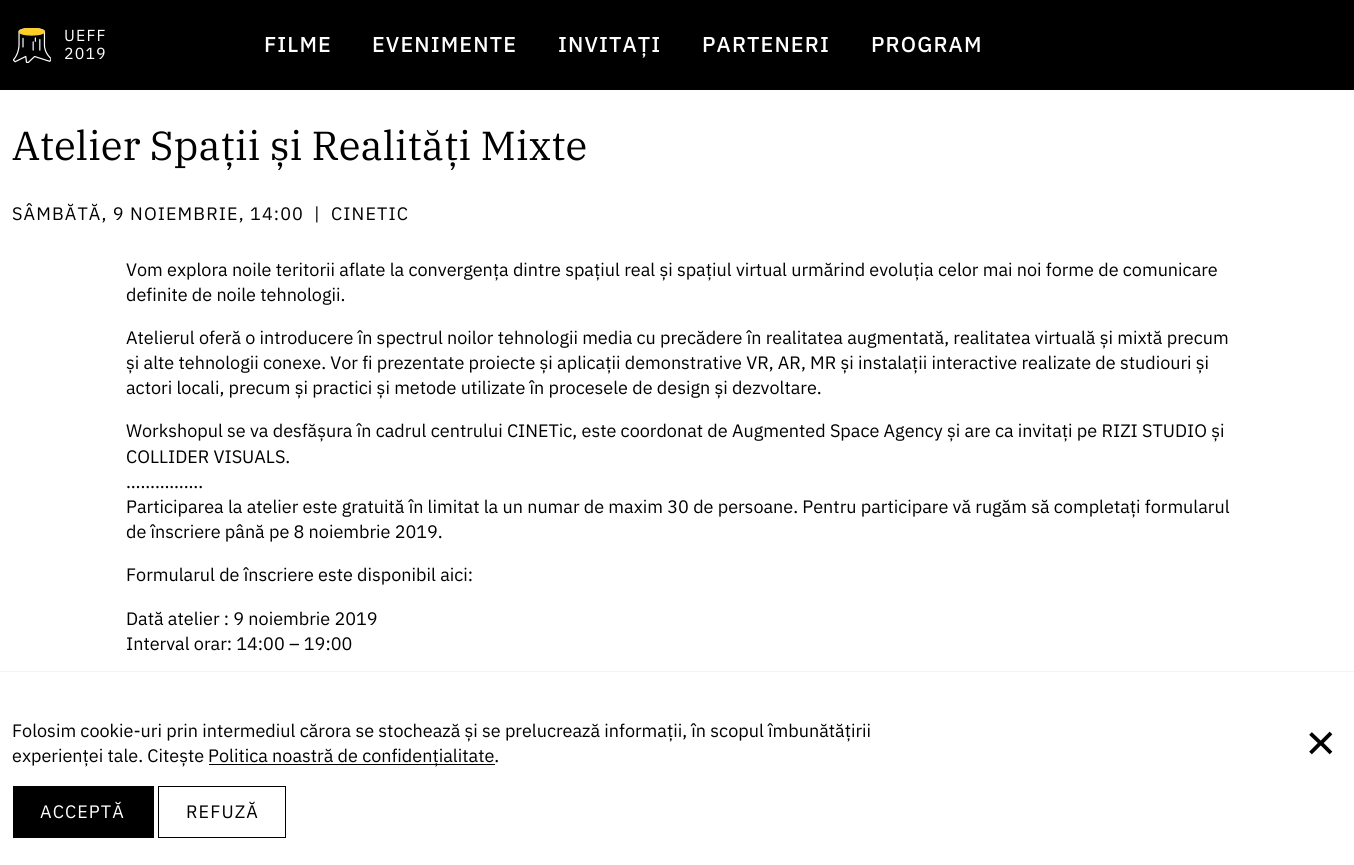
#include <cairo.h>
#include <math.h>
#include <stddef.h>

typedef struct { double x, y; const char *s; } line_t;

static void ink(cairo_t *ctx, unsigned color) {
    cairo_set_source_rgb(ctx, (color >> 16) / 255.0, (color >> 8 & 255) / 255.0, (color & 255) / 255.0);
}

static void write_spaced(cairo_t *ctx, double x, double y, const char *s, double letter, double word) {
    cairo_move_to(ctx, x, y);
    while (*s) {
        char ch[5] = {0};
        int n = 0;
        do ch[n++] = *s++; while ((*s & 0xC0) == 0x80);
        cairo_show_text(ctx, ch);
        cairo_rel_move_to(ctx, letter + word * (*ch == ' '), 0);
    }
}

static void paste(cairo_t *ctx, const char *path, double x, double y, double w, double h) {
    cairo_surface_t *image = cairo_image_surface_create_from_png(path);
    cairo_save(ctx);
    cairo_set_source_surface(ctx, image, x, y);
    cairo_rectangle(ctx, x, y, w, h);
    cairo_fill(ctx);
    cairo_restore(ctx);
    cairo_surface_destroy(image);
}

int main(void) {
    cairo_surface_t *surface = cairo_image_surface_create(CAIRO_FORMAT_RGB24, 1354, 865);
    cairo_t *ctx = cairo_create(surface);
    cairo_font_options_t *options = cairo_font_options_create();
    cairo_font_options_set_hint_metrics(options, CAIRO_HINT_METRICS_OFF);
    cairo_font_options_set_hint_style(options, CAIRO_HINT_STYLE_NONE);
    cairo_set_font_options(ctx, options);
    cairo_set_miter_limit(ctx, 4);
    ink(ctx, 0xFFFFFF);
    cairo_paint(ctx);
    ink(ctx, 0x000000);
    cairo_rectangle(ctx, 0, 0, 1354, 90);
    cairo_fill(ctx);
    paste(ctx, "media/1.png", 13, 28, 38, 35);
    cairo_select_font_face(ctx, "IBM Plex Sans", CAIRO_FONT_SLANT_NORMAL, CAIRO_FONT_WEIGHT_NORMAL);
    cairo_set_font_size(ctx, 16);
    ink(ctx, 0xFFFFFF);
    write_spaced(ctx, 64, 41, "UEFF", 1.1, 0);
    write_spaced(ctx, 64, 59, "2019", 1.1, 0);
    cairo_select_font_face(ctx, "IBM Plex Sans Medium", CAIRO_FONT_SLANT_NORMAL, CAIRO_FONT_WEIGHT_NORMAL);
    cairo_set_font_size(ctx, 21.5);
    {
        static const line_t items[] = {
            {264, 52, "FILME"},
            {372, 52, "EVENIMENTE"},
            {558, 52, "INVITAȚI"},
            {702, 52, "PARTENERI"},
            {871, 52, "PROGRAM"},
        };
        for (size_t i = 0; i < sizeof items / sizeof *items; i++) {
            write_spaced(ctx, items[i].x, items[i].y, items[i].s, 1.1, 0);
        }
    }
    cairo_select_font_face(ctx, "IBM Plex Serif", CAIRO_FONT_SLANT_NORMAL, CAIRO_FONT_WEIGHT_NORMAL);
    cairo_set_font_size(ctx, 40.5);
    ink(ctx, 0x000000);
    cairo_move_to(ctx, 12, 160);
    cairo_show_text(ctx, "Atelier Spații și Realități Mixte");
    cairo_select_font_face(ctx, "IBM Plex Sans", CAIRO_FONT_SLANT_NORMAL, CAIRO_FONT_WEIGHT_NORMAL);
    cairo_set_font_size(ctx, 18);
    {
        static const line_t items[] = {
            {12, 220, "SÂMBĂTĂ, 9 NOIEMBRIE, 14:00"},
            {314, 220, "|"},
            {331, 220, "CINETIC"},
        };
        for (size_t i = 0; i < sizeof items / sizeof *items; i++) {
            write_spaced(ctx, items[i].x, items[i].y, items[i].s, 1.1, 0);
        }
    }
    {
        static const line_t items[] = {
            {126, 276, "Vom explora noile teritorii aflate la convergența dintre spațiul real și spațiul virtual urmărind evoluția celor mai noi forme de comunicare"},
            {126, 301, "definite de noile tehnologii."},
            {126, 344, "Atelierul oferă o introducere în spectrul noilor tehnologii media cu precădere în realitatea augmentată, realitatea virtuală și mixtă precum"},
            {126, 369, "și alte tehnologii conexe. Vor fi prezentate proiecte și aplicații demonstrative VR, AR, MR și instalații interactive realizate de studiouri și"},
            {126, 394, "actori locali, precum și practici și metode utilizate în procesele de design și dezvoltare."},
            {126, 437, "Workshopul se va desfășura în cadrul centrului CINETic, este coordonat de Augmented Space Agency și are ca invitați pe RIZI STUDIO și"},
            {126, 463, "COLLIDER VISUALS."},
            {126, 488, "……………."},
            {126, 513, "Participarea la atelier este gratuită în limitat la un numar de maxim 30 de persoane. Pentru participare vă rugăm să completați formularul"},
            {126, 538, "de înscriere până pe 8 noiembrie 2019."},
            {126, 581, "Formularul de înscriere este disponibil aici:"},
            {126, 625, "Dată atelier : 9 noiembrie 2019"},
            {126, 650, "Interval orar: 14:00 – 19:00"},
        };
        for (size_t i = 0; i < sizeof items / sizeof *items; i++) {
            cairo_move_to(ctx, items[i].x, items[i].y);
            cairo_show_text(ctx, items[i].s);
        }
    }
    ink(ctx, 0xF4F4F4);
    cairo_rectangle(ctx, 0, 671, 1354, 1);
    cairo_fill(ctx);
    ink(ctx, 0x000000);
    cairo_move_to(ctx, 12, 737);
    cairo_show_text(ctx, "Folosim cookie-uri prin intermediul cărora se stochează și se prelucrează informații, în scopul îmbunătățirii");
    cairo_move_to(ctx, 12, 762);
    cairo_show_text(ctx, "experienței tale. Citește");
    cairo_rectangle(ctx, 209, 764, 286, 1);
    cairo_fill(ctx);
    cairo_move_to(ctx, 208, 762);
    cairo_show_text(ctx, "Politica noastră de confidențialitate.");
    cairo_new_path(ctx);
    cairo_move_to(ctx, 1310.5, 733.5);
    cairo_line_to(ctx, 1320.5, 743);
    cairo_line_to(ctx, 1310.5, 753);
    cairo_move_to(ctx, 1331, 753);
    cairo_line_to(ctx, 1321, 743);
    cairo_line_to(ctx, 1331, 733);
    cairo_set_line_width(ctx, 3.8);
    cairo_stroke(ctx);
    cairo_rectangle(ctx, 13, 786, 141, 52);
    cairo_fill(ctx);
    ink(ctx, 0xFFFFFF);
    write_spaced(ctx, 40, 818, "ACCEPTĂ", 1.1, 0);
    cairo_rectangle(ctx, 158.5, 786.5, 127, 51);
    ink(ctx, 0x000000);
    cairo_set_line_width(ctx, 1);
    cairo_stroke(ctx);
    write_spaced(ctx, 186, 818, "REFUZĂ", 1.1, 0);
    cairo_surface_write_to_png(surface, "image.png");
    cairo_font_options_destroy(options);
    cairo_destroy(ctx);
    cairo_surface_destroy(surface);
    return 0;
}
